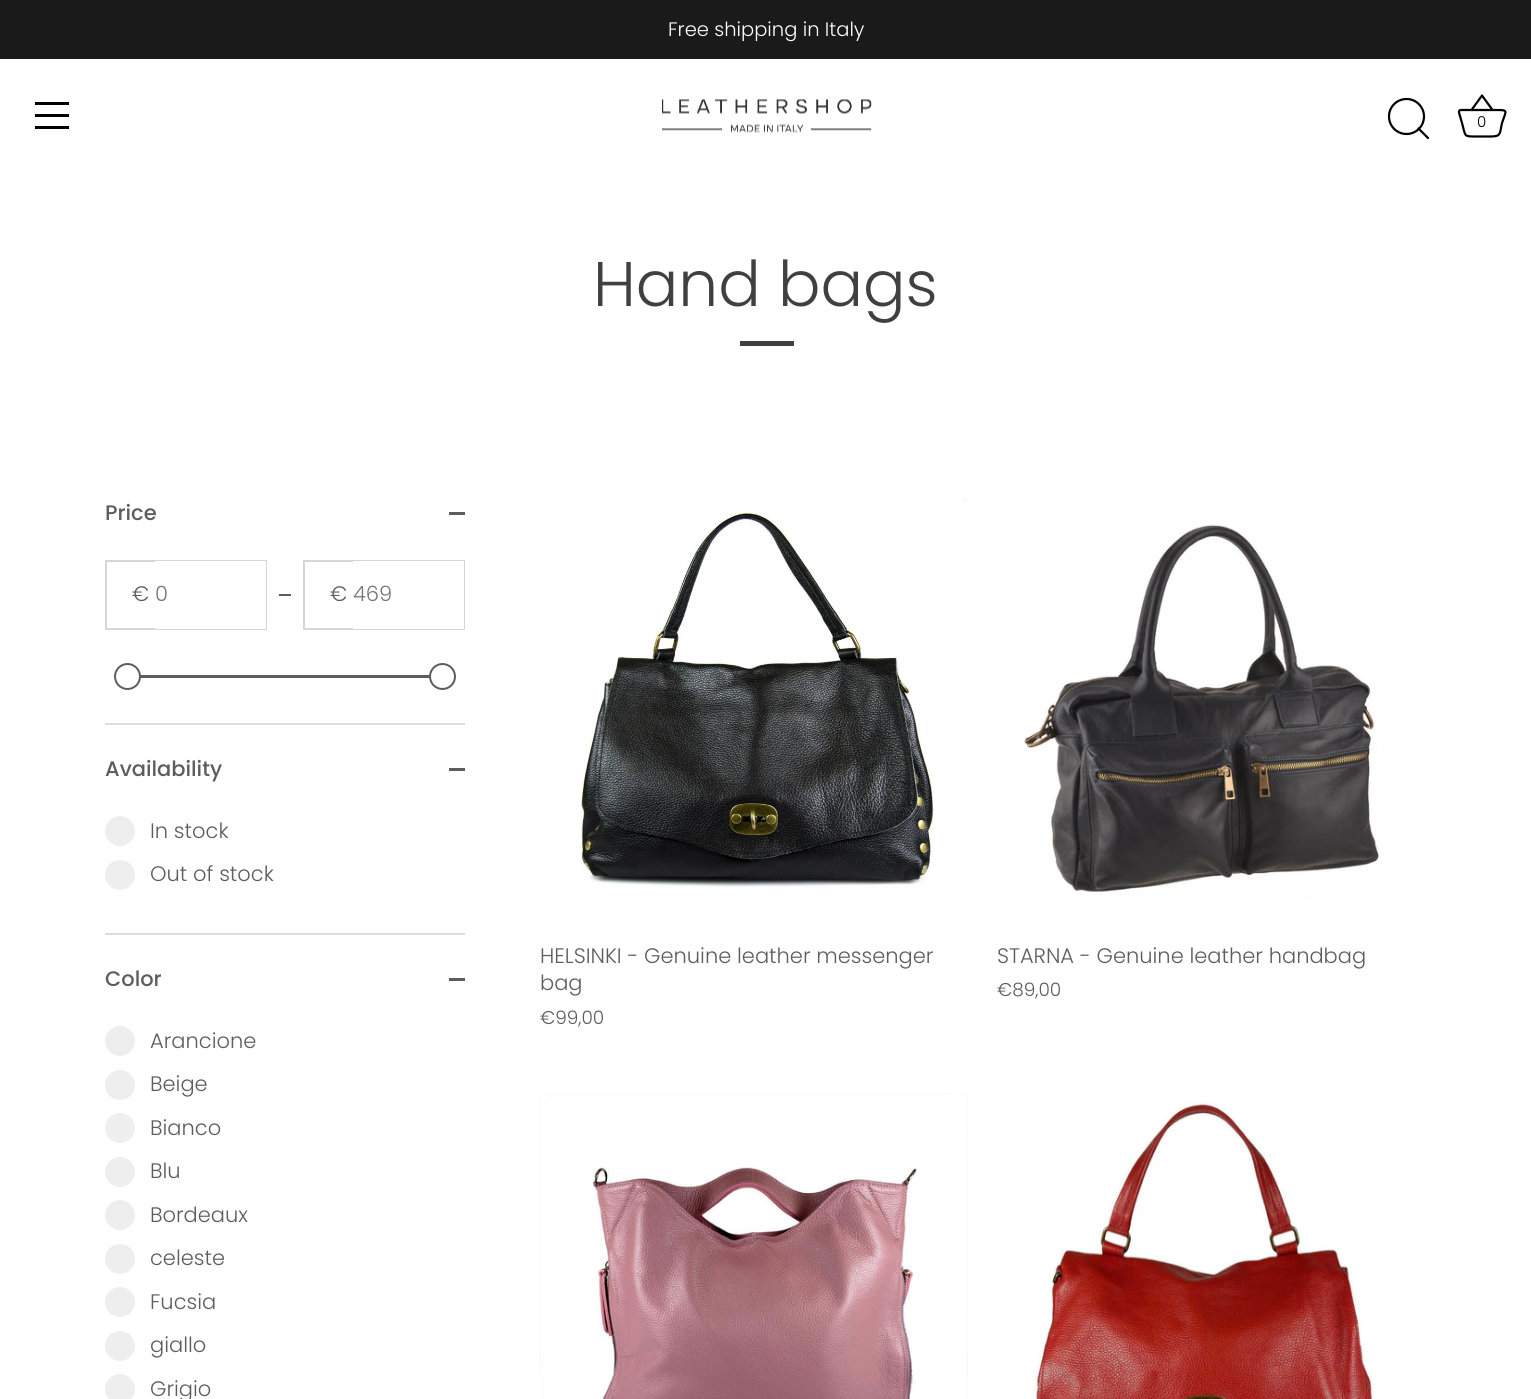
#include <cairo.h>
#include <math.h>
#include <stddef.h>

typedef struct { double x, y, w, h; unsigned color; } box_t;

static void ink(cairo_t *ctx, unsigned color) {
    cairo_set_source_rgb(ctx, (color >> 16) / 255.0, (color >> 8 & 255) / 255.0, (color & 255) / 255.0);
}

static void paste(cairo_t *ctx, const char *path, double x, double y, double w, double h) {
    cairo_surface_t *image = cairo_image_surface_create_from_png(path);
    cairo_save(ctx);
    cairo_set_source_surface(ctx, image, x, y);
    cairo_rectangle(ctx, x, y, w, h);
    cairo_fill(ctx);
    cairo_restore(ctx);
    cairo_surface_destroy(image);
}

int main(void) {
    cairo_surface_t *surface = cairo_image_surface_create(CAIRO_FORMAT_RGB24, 1531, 1399);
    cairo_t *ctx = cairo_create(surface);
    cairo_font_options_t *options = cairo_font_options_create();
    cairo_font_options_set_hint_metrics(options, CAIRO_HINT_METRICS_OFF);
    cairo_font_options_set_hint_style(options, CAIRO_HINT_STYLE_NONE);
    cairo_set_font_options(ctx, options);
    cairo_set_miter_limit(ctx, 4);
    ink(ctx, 0xFFFFFF);
    cairo_paint(ctx);
    ink(ctx, 0x1A1A1A);
    cairo_rectangle(ctx, 0, 0, 1531, 59);
    cairo_fill(ctx);
    cairo_select_font_face(ctx, "Poppins Light", CAIRO_FONT_SLANT_NORMAL, CAIRO_FONT_WEIGHT_NORMAL);
    cairo_set_font_size(ctx, 19.5);
    ink(ctx, 0xFFFFFF);
    cairo_move_to(ctx, 668, 36);
    cairo_show_text(ctx, "Free shipping in Italy");
    {
        static const box_t items[] = {
            {35, 102, 34, 3, 0x000000},
            {35, 114, 34, 3, 0x000000},
            {35, 126, 34, 3, 0x000000},
        };
        for (size_t i = 0; i < sizeof items / sizeof *items; i++) {
            ink(ctx, items[i].color);
            cairo_rectangle(ctx, items[i].x, items[i].y, items[i].w, items[i].h);
            cairo_fill(ctx);
        }
    }
    paste(ctx, "media/1.png", 662, 99, 210, 34);
    cairo_arc(ctx, 1406.5, 116.5, 17.5, 0, 2 * M_PI);
    cairo_set_line_width(ctx, 2.2);
    cairo_stroke(ctx);
    cairo_new_path(ctx);
    cairo_move_to(ctx, 1428, 138);
    cairo_line_to(ctx, 1418.5, 128.5);
    cairo_set_line_cap(ctx, CAIRO_LINE_CAP_ROUND);
    cairo_set_line_join(ctx, CAIRO_LINE_JOIN_ROUND);
    cairo_stroke(ctx);
    cairo_new_path(ctx);
    cairo_move_to(ctx, 1461, 110);
    cairo_curve_to(ctx, 1457.5, 110, 1459.5, 114.5, 1460, 116);
    cairo_line_to(ctx, 1462, 123);
    cairo_curve_to(ctx, 1466, 137, 1463, 136.5, 1477.5, 136.5);
    cairo_line_to(ctx, 1490.5, 136.5);
    cairo_curve_to(ctx, 1501.5, 136.5, 1499.5, 133.5, 1502, 123);
    cairo_curve_to(ctx, 1506, 110.5, 1509, 110, 1496, 110);
    cairo_line_to(ctx, 1461, 110);
    cairo_move_to(ctx, 1471.5, 110);
    cairo_line_to(ctx, 1482, 95.5);
    cairo_line_to(ctx, 1492.5, 110);
    cairo_set_line_cap(ctx, CAIRO_LINE_CAP_BUTT);
    cairo_stroke(ctx);
    cairo_set_font_size(ctx, 15);
    cairo_move_to(ctx, 1477, 127);
    cairo_show_text(ctx, "0");
    cairo_set_font_size(ctx, 63);
    ink(ctx, 0x423F3F);
    cairo_move_to(ctx, 593, 306);
    cairo_show_text(ctx, "Hand bags");
    cairo_rectangle(ctx, 740, 341, 54, 5);
    cairo_fill(ctx);
    ink(ctx, 0xDDDDDD);
    cairo_rectangle(ctx, 105, 723, 360, 2);
    cairo_fill(ctx);
    cairo_select_font_face(ctx, "Poppins Medium", CAIRO_FONT_SLANT_NORMAL, CAIRO_FONT_WEIGHT_NORMAL);
    cairo_set_font_size(ctx, 21);
    ink(ctx, 0x5E5C5C);
    cairo_move_to(ctx, 105, 520);
    cairo_show_text(ctx, "Price");
    cairo_rectangle(ctx, 449, 512, 16, 3);
    cairo_fill(ctx);
    cairo_rectangle(ctx, 106, 561, 160, 68);
    ink(ctx, 0xD7D6D6);
    cairo_set_line_width(ctx, 2);
    cairo_set_line_join(ctx, CAIRO_LINE_JOIN_MITER);
    cairo_stroke(ctx);
    cairo_select_font_face(ctx, "Poppins Light", CAIRO_FONT_SLANT_NORMAL, CAIRO_FONT_WEIGHT_NORMAL);
    ink(ctx, 0x5E5C5C);
    cairo_move_to(ctx, 132, 601);
    cairo_show_text(ctx, "€");
    ink(ctx, 0xFFFFFF);
    cairo_rectangle(ctx, 155, 561, 111, 68);
    cairo_fill(ctx);
    ink(ctx, 0x757575);
    cairo_move_to(ctx, 155, 601);
    cairo_show_text(ctx, "0");
    ink(ctx, 0x5E5C5C);
    cairo_rectangle(ctx, 279, 594, 12, 2);
    cairo_fill(ctx);
    cairo_rectangle(ctx, 304, 561, 160, 68);
    ink(ctx, 0xD7D6D6);
    cairo_stroke(ctx);
    ink(ctx, 0x5E5C5C);
    cairo_move_to(ctx, 330, 601);
    cairo_show_text(ctx, "€");
    ink(ctx, 0xFFFFFF);
    cairo_rectangle(ctx, 353, 561, 111, 68);
    cairo_fill(ctx);
    ink(ctx, 0x757575);
    cairo_move_to(ctx, 353, 601);
    cairo_show_text(ctx, "469");
    ink(ctx, 0x5E5C5C);
    cairo_rectangle(ctx, 140, 675, 290, 3);
    cairo_fill(ctx);
    ink(ctx, 0xFFFFFF);
    cairo_arc(ctx, 127.5, 676.5, 12.5, 0, 2 * M_PI);
    cairo_fill_preserve(ctx);
    ink(ctx, 0x5E5C5C);
    cairo_stroke(ctx);
    ink(ctx, 0xFFFFFF);
    cairo_arc(ctx, 442.5, 676.5, 12.5, 0, 2 * M_PI);
    cairo_fill_preserve(ctx);
    ink(ctx, 0x5E5C5C);
    cairo_stroke(ctx);
    ink(ctx, 0xDDDDDD);
    cairo_rectangle(ctx, 105, 933, 360, 2);
    cairo_fill(ctx);
    cairo_select_font_face(ctx, "Poppins Medium", CAIRO_FONT_SLANT_NORMAL, CAIRO_FONT_WEIGHT_NORMAL);
    ink(ctx, 0x5E5C5C);
    cairo_move_to(ctx, 105, 776);
    cairo_show_text(ctx, "Availability");
    cairo_rectangle(ctx, 449, 768, 16, 3);
    cairo_fill(ctx);
    ink(ctx, 0xEEEEEE);
    cairo_arc(ctx, 120, 831, 15, 0, 2 * M_PI);
    cairo_fill(ctx);
    cairo_select_font_face(ctx, "Poppins Light", CAIRO_FONT_SLANT_NORMAL, CAIRO_FONT_WEIGHT_NORMAL);
    ink(ctx, 0x5E5C5C);
    cairo_move_to(ctx, 150, 838);
    cairo_show_text(ctx, "In stock");
    ink(ctx, 0xEEEEEE);
    cairo_new_path(ctx);
    cairo_arc(ctx, 120, 875, 15, 0, 2 * M_PI);
    cairo_fill(ctx);
    ink(ctx, 0x5E5C5C);
    cairo_move_to(ctx, 150, 881);
    cairo_show_text(ctx, "Out of stock");
    cairo_select_font_face(ctx, "Poppins Medium", CAIRO_FONT_SLANT_NORMAL, CAIRO_FONT_WEIGHT_NORMAL);
    cairo_move_to(ctx, 105, 986);
    cairo_show_text(ctx, "Color");
    cairo_rectangle(ctx, 449, 978, 16, 3);
    cairo_fill(ctx);
    ink(ctx, 0xEEEEEE);
    cairo_arc(ctx, 120, 1041, 15, 0, 2 * M_PI);
    cairo_fill(ctx);
    cairo_select_font_face(ctx, "Poppins Light", CAIRO_FONT_SLANT_NORMAL, CAIRO_FONT_WEIGHT_NORMAL);
    ink(ctx, 0x5E5C5C);
    cairo_move_to(ctx, 150, 1048);
    cairo_show_text(ctx, "Arancione");
    ink(ctx, 0xEEEEEE);
    cairo_new_path(ctx);
    cairo_arc(ctx, 120, 1085, 15, 0, 2 * M_PI);
    cairo_fill(ctx);
    ink(ctx, 0x5E5C5C);
    cairo_move_to(ctx, 150, 1091);
    cairo_show_text(ctx, "Beige");
    ink(ctx, 0xEEEEEE);
    cairo_new_path(ctx);
    cairo_arc(ctx, 120, 1128, 15, 0, 2 * M_PI);
    cairo_fill(ctx);
    ink(ctx, 0x5E5C5C);
    cairo_move_to(ctx, 150, 1135);
    cairo_show_text(ctx, "Bianco");
    ink(ctx, 0xEEEEEE);
    cairo_new_path(ctx);
    cairo_arc(ctx, 120, 1172, 15, 0, 2 * M_PI);
    cairo_fill(ctx);
    ink(ctx, 0x5E5C5C);
    cairo_move_to(ctx, 150, 1178);
    cairo_show_text(ctx, "Blu");
    ink(ctx, 0xEEEEEE);
    cairo_new_path(ctx);
    cairo_arc(ctx, 120, 1215, 15, 0, 2 * M_PI);
    cairo_fill(ctx);
    ink(ctx, 0x5E5C5C);
    cairo_move_to(ctx, 150, 1222);
    cairo_show_text(ctx, "Bordeaux");
    ink(ctx, 0xEEEEEE);
    cairo_new_path(ctx);
    cairo_arc(ctx, 120, 1259, 15, 0, 2 * M_PI);
    cairo_fill(ctx);
    ink(ctx, 0x5E5C5C);
    cairo_move_to(ctx, 150, 1265);
    cairo_show_text(ctx, "celeste");
    ink(ctx, 0xEEEEEE);
    cairo_new_path(ctx);
    cairo_arc(ctx, 120, 1302, 15, 0, 2 * M_PI);
    cairo_fill(ctx);
    ink(ctx, 0x5E5C5C);
    cairo_move_to(ctx, 150, 1309);
    cairo_show_text(ctx, "Fucsia");
    ink(ctx, 0xEEEEEE);
    cairo_new_path(ctx);
    cairo_arc(ctx, 120, 1346, 15, 0, 2 * M_PI);
    cairo_fill(ctx);
    ink(ctx, 0x5E5C5C);
    cairo_move_to(ctx, 150, 1352);
    cairo_show_text(ctx, "giallo");
    ink(ctx, 0xEEEEEE);
    cairo_new_path(ctx);
    cairo_arc(ctx, 120, 1389, 15, 0, 2 * M_PI);
    cairo_fill(ctx);
    ink(ctx, 0x5E5C5C);
    cairo_move_to(ctx, 150, 1396);
    cairo_show_text(ctx, "Grigio");
    paste(ctx, "media/2.png", 580, 498, 388, 390);
    cairo_move_to(ctx, 540, 963);
    cairo_show_text(ctx, "HELSINKI - Genuine leather messenger");
    cairo_move_to(ctx, 540, 990);
    cairo_show_text(ctx, "bag");
    cairo_set_font_size(ctx, 18.5);
    cairo_move_to(ctx, 540, 1024);
    cairo_show_text(ctx, "€99,00");
    paste(ctx, "media/3.png", 1024, 524, 356, 373);
    cairo_set_font_size(ctx, 21);
    cairo_move_to(ctx, 997, 963);
    cairo_show_text(ctx, "STARNA - Genuine leather handbag");
    cairo_set_font_size(ctx, 18.5);
    cairo_move_to(ctx, 997, 996);
    cairo_show_text(ctx, "€89,00");
    paste(ctx, "media/4.png", 540, 1094, 428, 305);
    paste(ctx, "media/5.png", 1034, 1101, 341, 298);
    cairo_surface_write_to_png(surface, "image.png");
    cairo_font_options_destroy(options);
    cairo_destroy(ctx);
    cairo_surface_destroy(surface);
    return 0;
}
